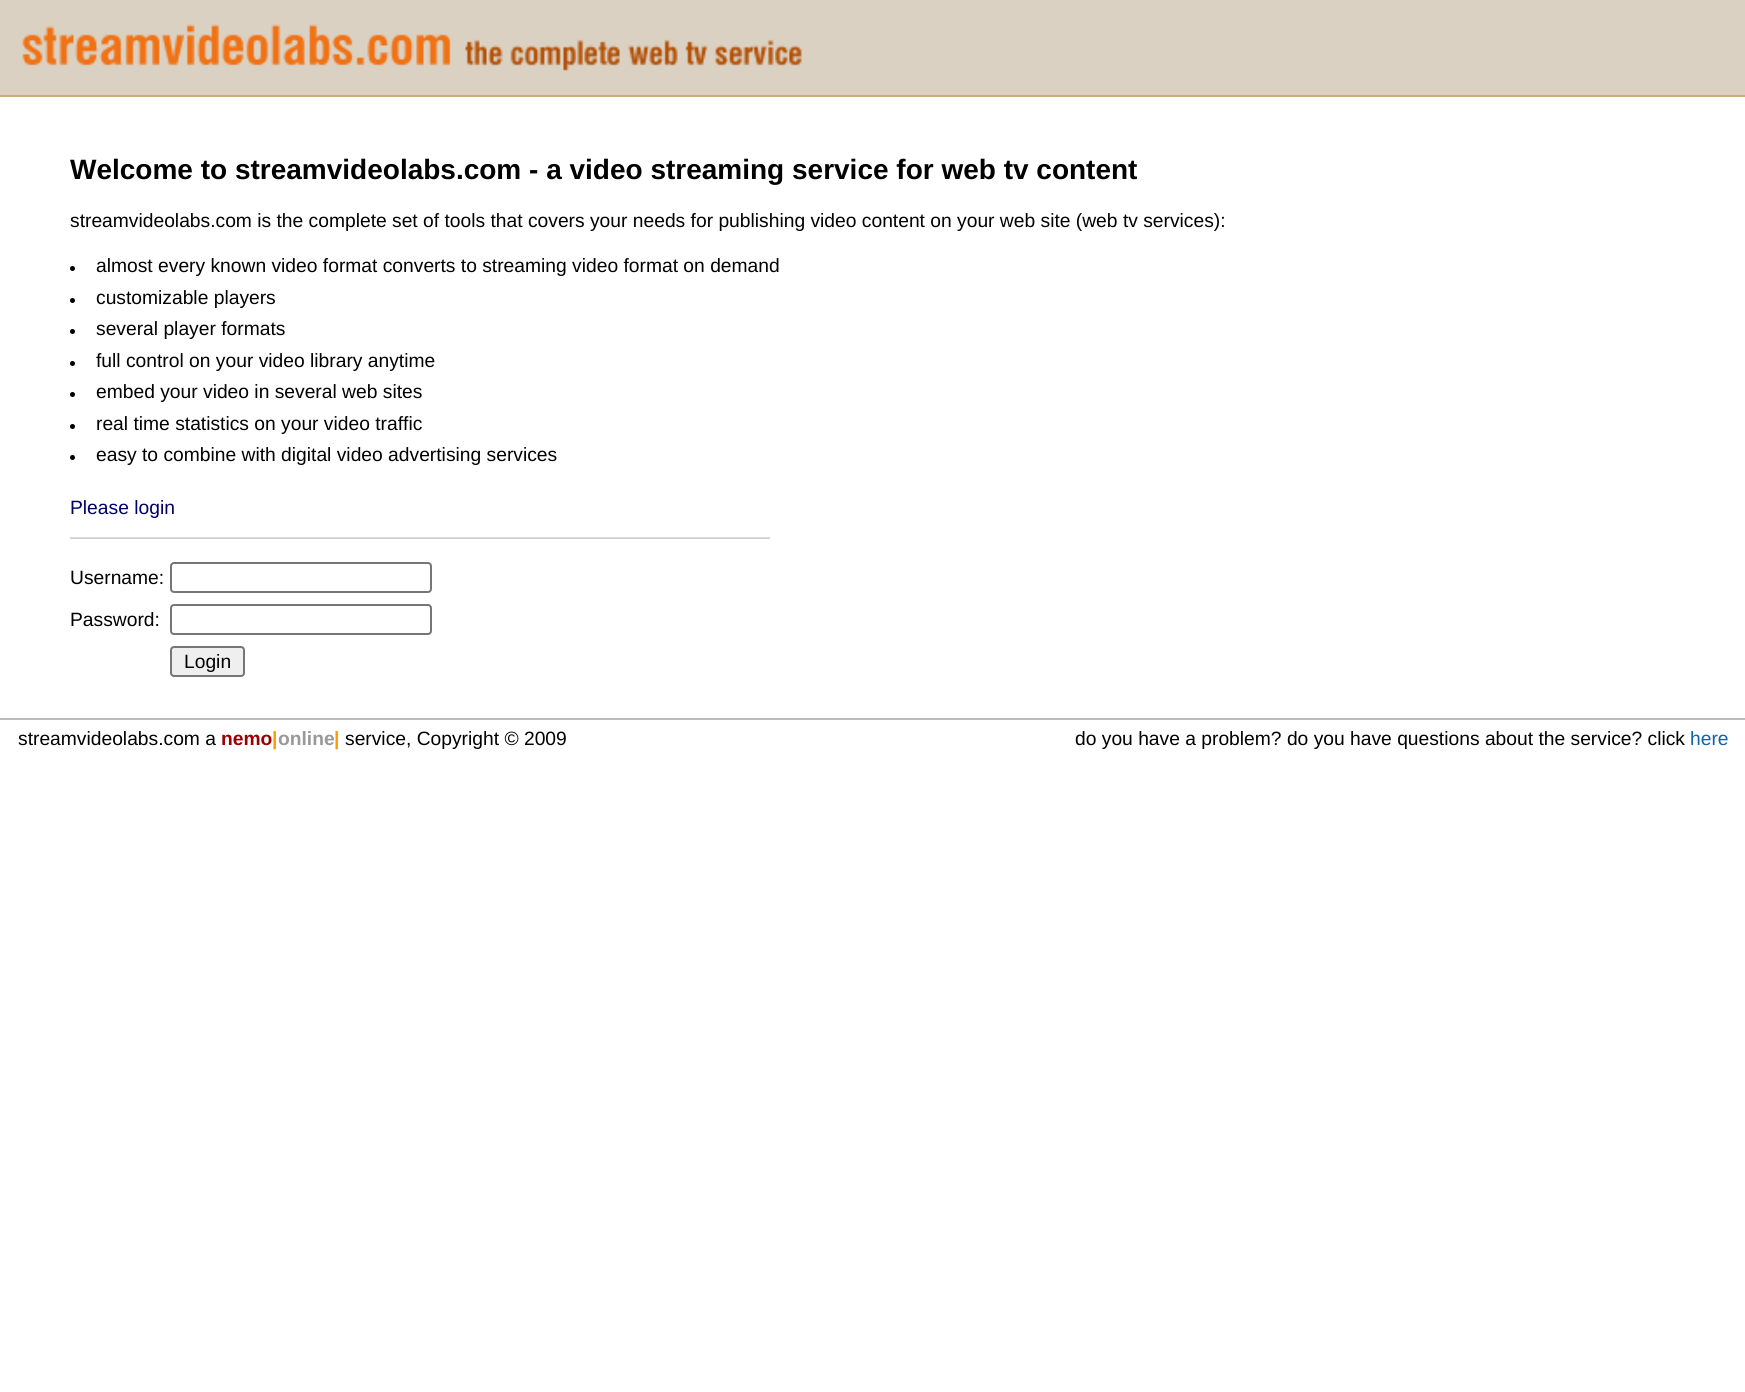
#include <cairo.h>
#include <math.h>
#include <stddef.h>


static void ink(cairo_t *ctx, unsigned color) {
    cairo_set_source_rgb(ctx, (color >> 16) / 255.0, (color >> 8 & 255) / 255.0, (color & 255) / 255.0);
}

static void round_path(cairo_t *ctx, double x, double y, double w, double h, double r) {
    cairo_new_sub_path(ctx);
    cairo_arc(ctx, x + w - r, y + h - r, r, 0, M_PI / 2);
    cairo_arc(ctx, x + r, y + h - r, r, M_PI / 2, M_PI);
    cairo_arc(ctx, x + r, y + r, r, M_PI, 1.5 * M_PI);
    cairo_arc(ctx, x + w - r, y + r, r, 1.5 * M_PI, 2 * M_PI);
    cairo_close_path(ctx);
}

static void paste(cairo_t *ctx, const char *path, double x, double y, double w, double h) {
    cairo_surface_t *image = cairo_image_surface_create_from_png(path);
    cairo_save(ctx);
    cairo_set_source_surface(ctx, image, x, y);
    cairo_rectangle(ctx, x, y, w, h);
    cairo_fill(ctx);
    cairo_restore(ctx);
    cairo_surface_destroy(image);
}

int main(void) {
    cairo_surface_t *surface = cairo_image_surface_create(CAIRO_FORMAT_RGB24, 1745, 1392);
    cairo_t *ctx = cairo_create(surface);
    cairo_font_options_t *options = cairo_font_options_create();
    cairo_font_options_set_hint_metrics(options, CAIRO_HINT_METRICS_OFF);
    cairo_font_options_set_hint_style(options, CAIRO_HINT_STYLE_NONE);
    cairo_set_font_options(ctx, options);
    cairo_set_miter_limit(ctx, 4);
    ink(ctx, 0xFFFFFF);
    cairo_paint(ctx);
    ink(ctx, 0xDAD1C2);
    cairo_rectangle(ctx, 0, 0, 1745, 95);
    cairo_fill(ctx);
    ink(ctx, 0xCDAC78);
    cairo_rectangle(ctx, 0, 95, 1745, 2);
    cairo_fill(ctx);
    paste(ctx, "media/1.png", 22, 24, 780, 47);
    cairo_select_font_face(ctx, "Liberation Sans", CAIRO_FONT_SLANT_NORMAL, CAIRO_FONT_WEIGHT_BOLD);
    cairo_set_font_size(ctx, 28);
    ink(ctx, 0x000000);
    cairo_move_to(ctx, 70, 179);
    cairo_show_text(ctx, "Welcome to streamvideolabs.com - a video streaming service for web tv content");
    cairo_select_font_face(ctx, "Liberation Sans", CAIRO_FONT_SLANT_NORMAL, CAIRO_FONT_WEIGHT_NORMAL);
    cairo_set_font_size(ctx, 19.25);
    cairo_move_to(ctx, 70, 227);
    cairo_show_text(ctx, "streamvideolabs.com is the complete set of tools that covers your needs for publishing video content on your web site (web tv services):");
    cairo_new_path(ctx);
    cairo_arc(ctx, 72.5, 268.5, 2.5, 0, 2 * M_PI);
    cairo_fill(ctx);
    cairo_move_to(ctx, 96, 272);
    cairo_show_text(ctx, "almost every known video format converts to streaming video format on demand");
    cairo_new_path(ctx);
    cairo_arc(ctx, 72.5, 300.5, 2.5, 0, 2 * M_PI);
    cairo_fill(ctx);
    cairo_move_to(ctx, 96, 304);
    cairo_show_text(ctx, "customizable players");
    cairo_new_path(ctx);
    cairo_arc(ctx, 72.5, 331.5, 2.5, 0, 2 * M_PI);
    cairo_fill(ctx);
    cairo_move_to(ctx, 96, 335);
    cairo_show_text(ctx, "several player formats");
    cairo_new_path(ctx);
    cairo_arc(ctx, 72.5, 363.5, 2.5, 0, 2 * M_PI);
    cairo_fill(ctx);
    cairo_move_to(ctx, 96, 367);
    cairo_show_text(ctx, "full control on your video library anytime");
    cairo_new_path(ctx);
    cairo_arc(ctx, 72.5, 394.5, 2.5, 0, 2 * M_PI);
    cairo_fill(ctx);
    cairo_move_to(ctx, 96, 398);
    cairo_show_text(ctx, "embed your video in several web sites");
    cairo_new_path(ctx);
    cairo_arc(ctx, 72.5, 426.5, 2.5, 0, 2 * M_PI);
    cairo_fill(ctx);
    cairo_move_to(ctx, 96, 430);
    cairo_show_text(ctx, "real time statistics on your video traffic");
    cairo_new_path(ctx);
    cairo_arc(ctx, 72.5, 457.5, 2.5, 0, 2 * M_PI);
    cairo_fill(ctx);
    cairo_move_to(ctx, 96, 461);
    cairo_show_text(ctx, "easy to combine with digital video advertising services");
    ink(ctx, 0x000066);
    cairo_move_to(ctx, 70, 514);
    cairo_show_text(ctx, "Please login");
    paste(ctx, "media/2.png", 70, 537, 700, 2);
    ink(ctx, 0x000000);
    cairo_move_to(ctx, 70, 584);
    cairo_show_text(ctx, "Username:");
    round_path(ctx, 171, 563, 260, 29, 3);
    ink(ctx, 0x767676);
    cairo_stroke(ctx);
    ink(ctx, 0x000000);
    cairo_move_to(ctx, 70, 626);
    cairo_show_text(ctx, "Password:");
    round_path(ctx, 171, 605, 260, 29, 3);
    ink(ctx, 0x767676);
    cairo_stroke(ctx);
    ink(ctx, 0xEFEFEF);
    round_path(ctx, 171, 647, 73, 29, 3);
    cairo_fill_preserve(ctx);
    ink(ctx, 0x767676);
    cairo_stroke(ctx);
    ink(ctx, 0x000000);
    cairo_move_to(ctx, 184, 668);
    cairo_show_text(ctx, "Login");
    ink(ctx, 0xBBBBBB);
    cairo_rectangle(ctx, 0, 718, 1745, 2);
    cairo_fill(ctx);
    ink(ctx, 0x000000);
    cairo_move_to(ctx, 18, 745);
    cairo_show_text(ctx, "streamvideolabs.com a");
    cairo_select_font_face(ctx, "Liberation Sans", CAIRO_FONT_SLANT_NORMAL, CAIRO_FONT_WEIGHT_BOLD);
    ink(ctx, 0x990000);
    cairo_move_to(ctx, 221, 745);
    cairo_show_text(ctx, "nemo");
    ink(ctx, 0xFF9900);
    cairo_move_to(ctx, 272, 745);
    cairo_show_text(ctx, "|");
    ink(ctx, 0x999999);
    cairo_move_to(ctx, 278, 745);
    cairo_show_text(ctx, "online");
    ink(ctx, 0xFF9900);
    cairo_move_to(ctx, 334, 745);
    cairo_show_text(ctx, "|");
    cairo_select_font_face(ctx, "Liberation Sans", CAIRO_FONT_SLANT_NORMAL, CAIRO_FONT_WEIGHT_NORMAL);
    ink(ctx, 0x000000);
    cairo_move_to(ctx, 345, 745);
    cairo_show_text(ctx, "service, Copyright © 2009");
    cairo_move_to(ctx, 1075, 745);
    cairo_show_text(ctx, "do you have a problem? do you have questions about the service? click");
    ink(ctx, 0x0767A8);
    cairo_move_to(ctx, 1690, 745);
    cairo_show_text(ctx, "here");
    cairo_surface_write_to_png(surface, "image.png");
    cairo_font_options_destroy(options);
    cairo_destroy(ctx);
    cairo_surface_destroy(surface);
    return 0;
}
